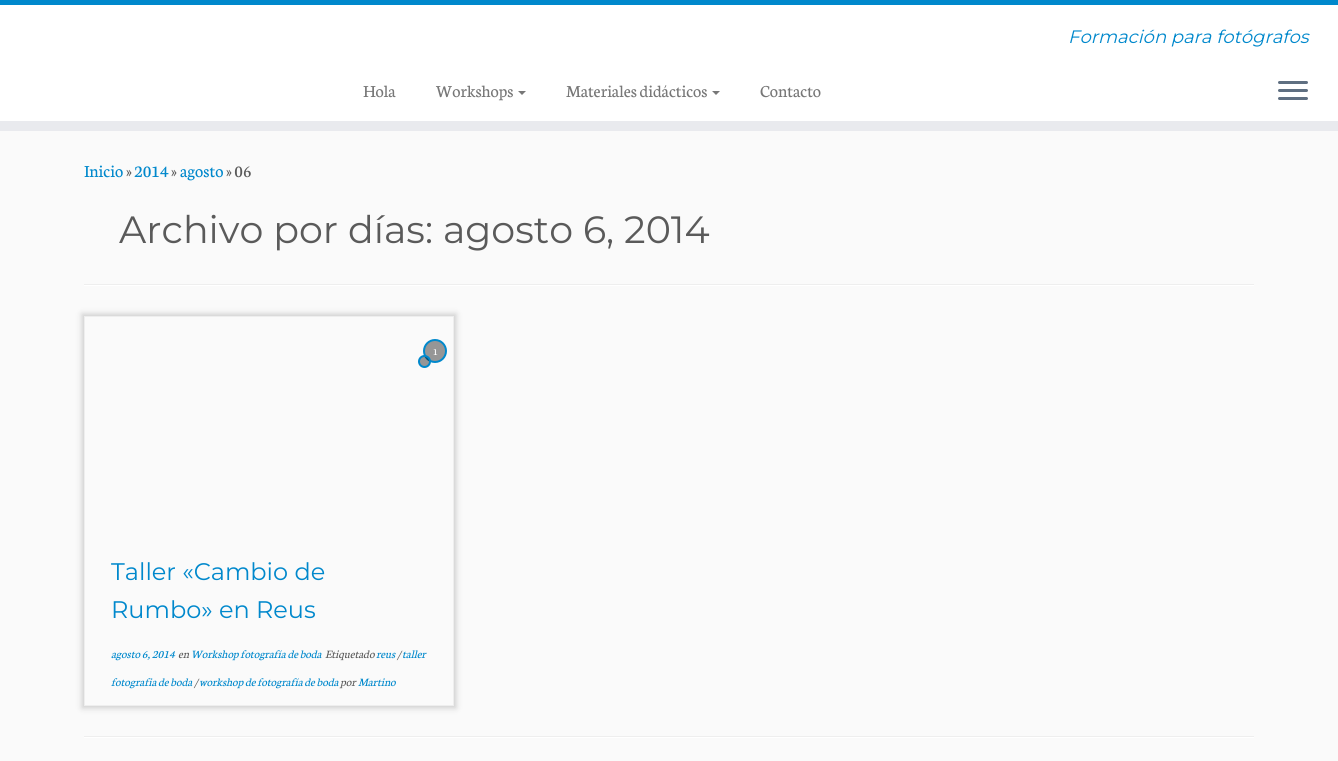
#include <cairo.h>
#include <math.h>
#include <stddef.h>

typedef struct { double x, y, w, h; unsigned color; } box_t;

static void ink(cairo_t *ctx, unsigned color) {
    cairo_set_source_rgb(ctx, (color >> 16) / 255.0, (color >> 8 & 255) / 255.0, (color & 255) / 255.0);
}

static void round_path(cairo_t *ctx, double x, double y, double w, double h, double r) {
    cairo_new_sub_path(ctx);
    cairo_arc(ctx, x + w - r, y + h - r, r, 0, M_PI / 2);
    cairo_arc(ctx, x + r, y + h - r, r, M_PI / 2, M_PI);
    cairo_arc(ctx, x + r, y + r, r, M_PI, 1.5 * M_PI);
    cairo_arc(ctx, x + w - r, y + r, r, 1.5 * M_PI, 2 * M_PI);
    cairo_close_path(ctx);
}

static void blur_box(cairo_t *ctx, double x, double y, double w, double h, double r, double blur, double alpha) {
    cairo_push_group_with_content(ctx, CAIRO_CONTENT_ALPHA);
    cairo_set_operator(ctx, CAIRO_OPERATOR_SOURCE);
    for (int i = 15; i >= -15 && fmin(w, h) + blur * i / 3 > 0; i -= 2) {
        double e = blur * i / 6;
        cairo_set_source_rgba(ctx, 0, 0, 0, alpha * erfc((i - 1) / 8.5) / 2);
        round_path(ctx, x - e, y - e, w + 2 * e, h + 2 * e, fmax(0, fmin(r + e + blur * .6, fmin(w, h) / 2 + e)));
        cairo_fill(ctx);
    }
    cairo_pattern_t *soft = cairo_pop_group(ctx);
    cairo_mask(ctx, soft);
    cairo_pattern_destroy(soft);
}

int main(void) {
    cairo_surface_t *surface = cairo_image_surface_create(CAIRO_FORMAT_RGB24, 1338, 761);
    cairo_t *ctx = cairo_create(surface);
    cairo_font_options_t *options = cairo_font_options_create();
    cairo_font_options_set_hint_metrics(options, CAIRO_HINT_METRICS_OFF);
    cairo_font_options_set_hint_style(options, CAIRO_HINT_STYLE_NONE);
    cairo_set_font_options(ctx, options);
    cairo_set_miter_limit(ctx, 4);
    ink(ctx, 0xFAFAFA);
    cairo_paint(ctx);
    {
        static const box_t items[] = {
            {0, 5, 1338, 116, 0xFFFFFF},
            {0, 0, 1338, 5, 0x0088CC},
            {0, 121, 1338, 10, 0xE9EAEE},
        };
        for (size_t i = 0; i < sizeof items / sizeof *items; i++) {
            ink(ctx, items[i].color);
            cairo_rectangle(ctx, items[i].x, items[i].y, items[i].w, items[i].h);
            cairo_fill(ctx);
        }
    }
    cairo_select_font_face(ctx, "Montserrat Thin", CAIRO_FONT_SLANT_ITALIC, CAIRO_FONT_WEIGHT_NORMAL);
    cairo_set_font_size(ctx, 18);
    ink(ctx, 0x0088CC);
    cairo_move_to(ctx, 1068, 43);
    cairo_show_text(ctx, "Formación para fotógrafos");
    cairo_select_font_face(ctx, "Neuton", CAIRO_FONT_SLANT_NORMAL, CAIRO_FONT_WEIGHT_NORMAL);
    ink(ctx, 0x777777);
    cairo_move_to(ctx, 363, 97);
    cairo_show_text(ctx, "Hola");
    cairo_move_to(ctx, 436, 97);
    cairo_show_text(ctx, "Workshops");
    cairo_new_path(ctx);
    cairo_move_to(ctx, 518, 91);
    cairo_line_to(ctx, 526, 91);
    cairo_line_to(ctx, 522, 95);
    cairo_close_path(ctx);
    cairo_fill(ctx);
    cairo_move_to(ctx, 566, 97);
    cairo_show_text(ctx, "Materiales didácticos");
    cairo_new_path(ctx);
    cairo_move_to(ctx, 712, 91);
    cairo_line_to(ctx, 720, 91);
    cairo_line_to(ctx, 716, 95);
    cairo_close_path(ctx);
    cairo_fill(ctx);
    cairo_move_to(ctx, 760, 97);
    cairo_show_text(ctx, "Contacto");
    ink(ctx, 0x5F6F81);
    round_path(ctx, 1278, 81, 30, 3, 1.5);
    cairo_fill(ctx);
    round_path(ctx, 1278, 89, 30, 3, 1.5);
    cairo_fill(ctx);
    round_path(ctx, 1278, 97, 30, 3, 1.5);
    cairo_fill(ctx);
    ink(ctx, 0x0088CC);
    cairo_move_to(ctx, 84, 177);
    cairo_show_text(ctx, "Inicio");
    ink(ctx, 0x5A5A5A);
    cairo_move_to(ctx, 126, 177);
    cairo_show_text(ctx, "»");
    ink(ctx, 0x0088CC);
    cairo_move_to(ctx, 134, 177);
    cairo_show_text(ctx, "2014");
    ink(ctx, 0x5A5A5A);
    cairo_move_to(ctx, 171, 177);
    cairo_show_text(ctx, "»");
    ink(ctx, 0x0088CC);
    cairo_move_to(ctx, 180, 177);
    cairo_show_text(ctx, "agosto");
    ink(ctx, 0x5A5A5A);
    cairo_move_to(ctx, 226, 177);
    cairo_show_text(ctx, "» 06");
    cairo_select_font_face(ctx, "Montserrat Thin", CAIRO_FONT_SLANT_NORMAL, CAIRO_FONT_WEIGHT_NORMAL);
    cairo_set_font_size(ctx, 38);
    cairo_move_to(ctx, 119, 243);
    cairo_show_text(ctx, "Archivo por días: agosto 6, 2014");
    ink(ctx, 0xEEEEEE);
    cairo_rectangle(ctx, 84, 284, 1170, 1);
    cairo_fill(ctx);
    ink(ctx, 0xFFFFFF);
    cairo_rectangle(ctx, 84, 285, 1170, 1);
    cairo_fill(ctx);
    cairo_save(ctx);
    cairo_set_fill_rule(ctx, CAIRO_FILL_RULE_EVEN_ODD);
    cairo_new_path(ctx);
    cairo_move_to(ctx, 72, 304);
    cairo_line_to(ctx, 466, 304);
    cairo_line_to(ctx, 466, 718);
    cairo_line_to(ctx, 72, 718);
    cairo_close_path(ctx);
    cairo_move_to(ctx, 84, 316);
    cairo_line_to(ctx, 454, 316);
    cairo_line_to(ctx, 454, 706);
    cairo_line_to(ctx, 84, 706);
    cairo_close_path(ctx);
    cairo_clip(ctx);
    ink(ctx, 0xCCCCCC);
    blur_box(ctx, 82, 314, 374, 394, 0, 3, 1);
    cairo_restore(ctx);
    cairo_rectangle(ctx, 84.5, 316.5, 369, 389);
    ink(ctx, 0xEEEEEE);
    cairo_set_line_width(ctx, 1);
    cairo_stroke(ctx);
    ink(ctx, 0x969696);
    cairo_arc(ctx, 435, 351, 11, 0, 2 * M_PI);
    cairo_fill_preserve(ctx);
    ink(ctx, 0x0088CC);
    cairo_set_line_width(ctx, 2);
    cairo_stroke(ctx);
    cairo_select_font_face(ctx, "Neuton", CAIRO_FONT_SLANT_NORMAL, CAIRO_FONT_WEIGHT_NORMAL);
    cairo_set_font_size(ctx, 10);
    ink(ctx, 0xFFFFFF);
    cairo_move_to(ctx, 433, 355);
    cairo_show_text(ctx, "1");
    cairo_set_source_rgba(ctx, 0, 0, 0, 0.4);
    cairo_new_path(ctx);
    cairo_arc(ctx, 424.5, 361.5, 5.5, 0, 2 * M_PI);
    cairo_fill_preserve(ctx);
    ink(ctx, 0x0088CC);
    cairo_stroke(ctx);
    cairo_select_font_face(ctx, "Montserrat Thin", CAIRO_FONT_SLANT_NORMAL, CAIRO_FONT_WEIGHT_NORMAL);
    cairo_set_font_size(ctx, 24);
    cairo_move_to(ctx, 111, 580);
    cairo_show_text(ctx, "Taller «Cambio de");
    cairo_move_to(ctx, 111, 618);
    cairo_show_text(ctx, "Rumbo» en Reus");
    cairo_select_font_face(ctx, "Neuton", CAIRO_FONT_SLANT_ITALIC, CAIRO_FONT_WEIGHT_NORMAL);
    cairo_set_font_size(ctx, 12);
    cairo_move_to(ctx, 111, 658);
    cairo_show_text(ctx, "agosto 6, 2014");
    ink(ctx, 0x5A5A5A);
    cairo_move_to(ctx, 178, 658);
    cairo_show_text(ctx, "en");
    ink(ctx, 0x0088CC);
    cairo_move_to(ctx, 191, 658);
    cairo_show_text(ctx, "Workshop fotografía de boda");
    ink(ctx, 0x5A5A5A);
    cairo_move_to(ctx, 325, 658);
    cairo_show_text(ctx, "Etiquetado");
    ink(ctx, 0x0088CC);
    cairo_move_to(ctx, 376, 658);
    cairo_show_text(ctx, "reus");
    ink(ctx, 0x5A5A5A);
    cairo_move_to(ctx, 397, 658);
    cairo_show_text(ctx, "/");
    ink(ctx, 0x0088CC);
    cairo_move_to(ctx, 402, 658);
    cairo_show_text(ctx, "taller");
    cairo_move_to(ctx, 111, 686);
    cairo_show_text(ctx, "fotografia de boda");
    ink(ctx, 0x5A5A5A);
    cairo_move_to(ctx, 194, 686);
    cairo_show_text(ctx, "/");
    ink(ctx, 0x0088CC);
    cairo_move_to(ctx, 199, 686);
    cairo_show_text(ctx, "workshop de fotografía de boda");
    ink(ctx, 0x5A5A5A);
    cairo_move_to(ctx, 340, 686);
    cairo_show_text(ctx, "por");
    ink(ctx, 0x0088CC);
    cairo_move_to(ctx, 358, 686);
    cairo_show_text(ctx, "Martino");
    ink(ctx, 0xEEEEEE);
    cairo_rectangle(ctx, 84, 736, 1170, 1);
    cairo_fill(ctx);
    ink(ctx, 0xFFFFFF);
    cairo_rectangle(ctx, 84, 737, 1170, 1);
    cairo_fill(ctx);
    cairo_surface_write_to_png(surface, "image.png");
    cairo_font_options_destroy(options);
    cairo_destroy(ctx);
    cairo_surface_destroy(surface);
    return 0;
}
